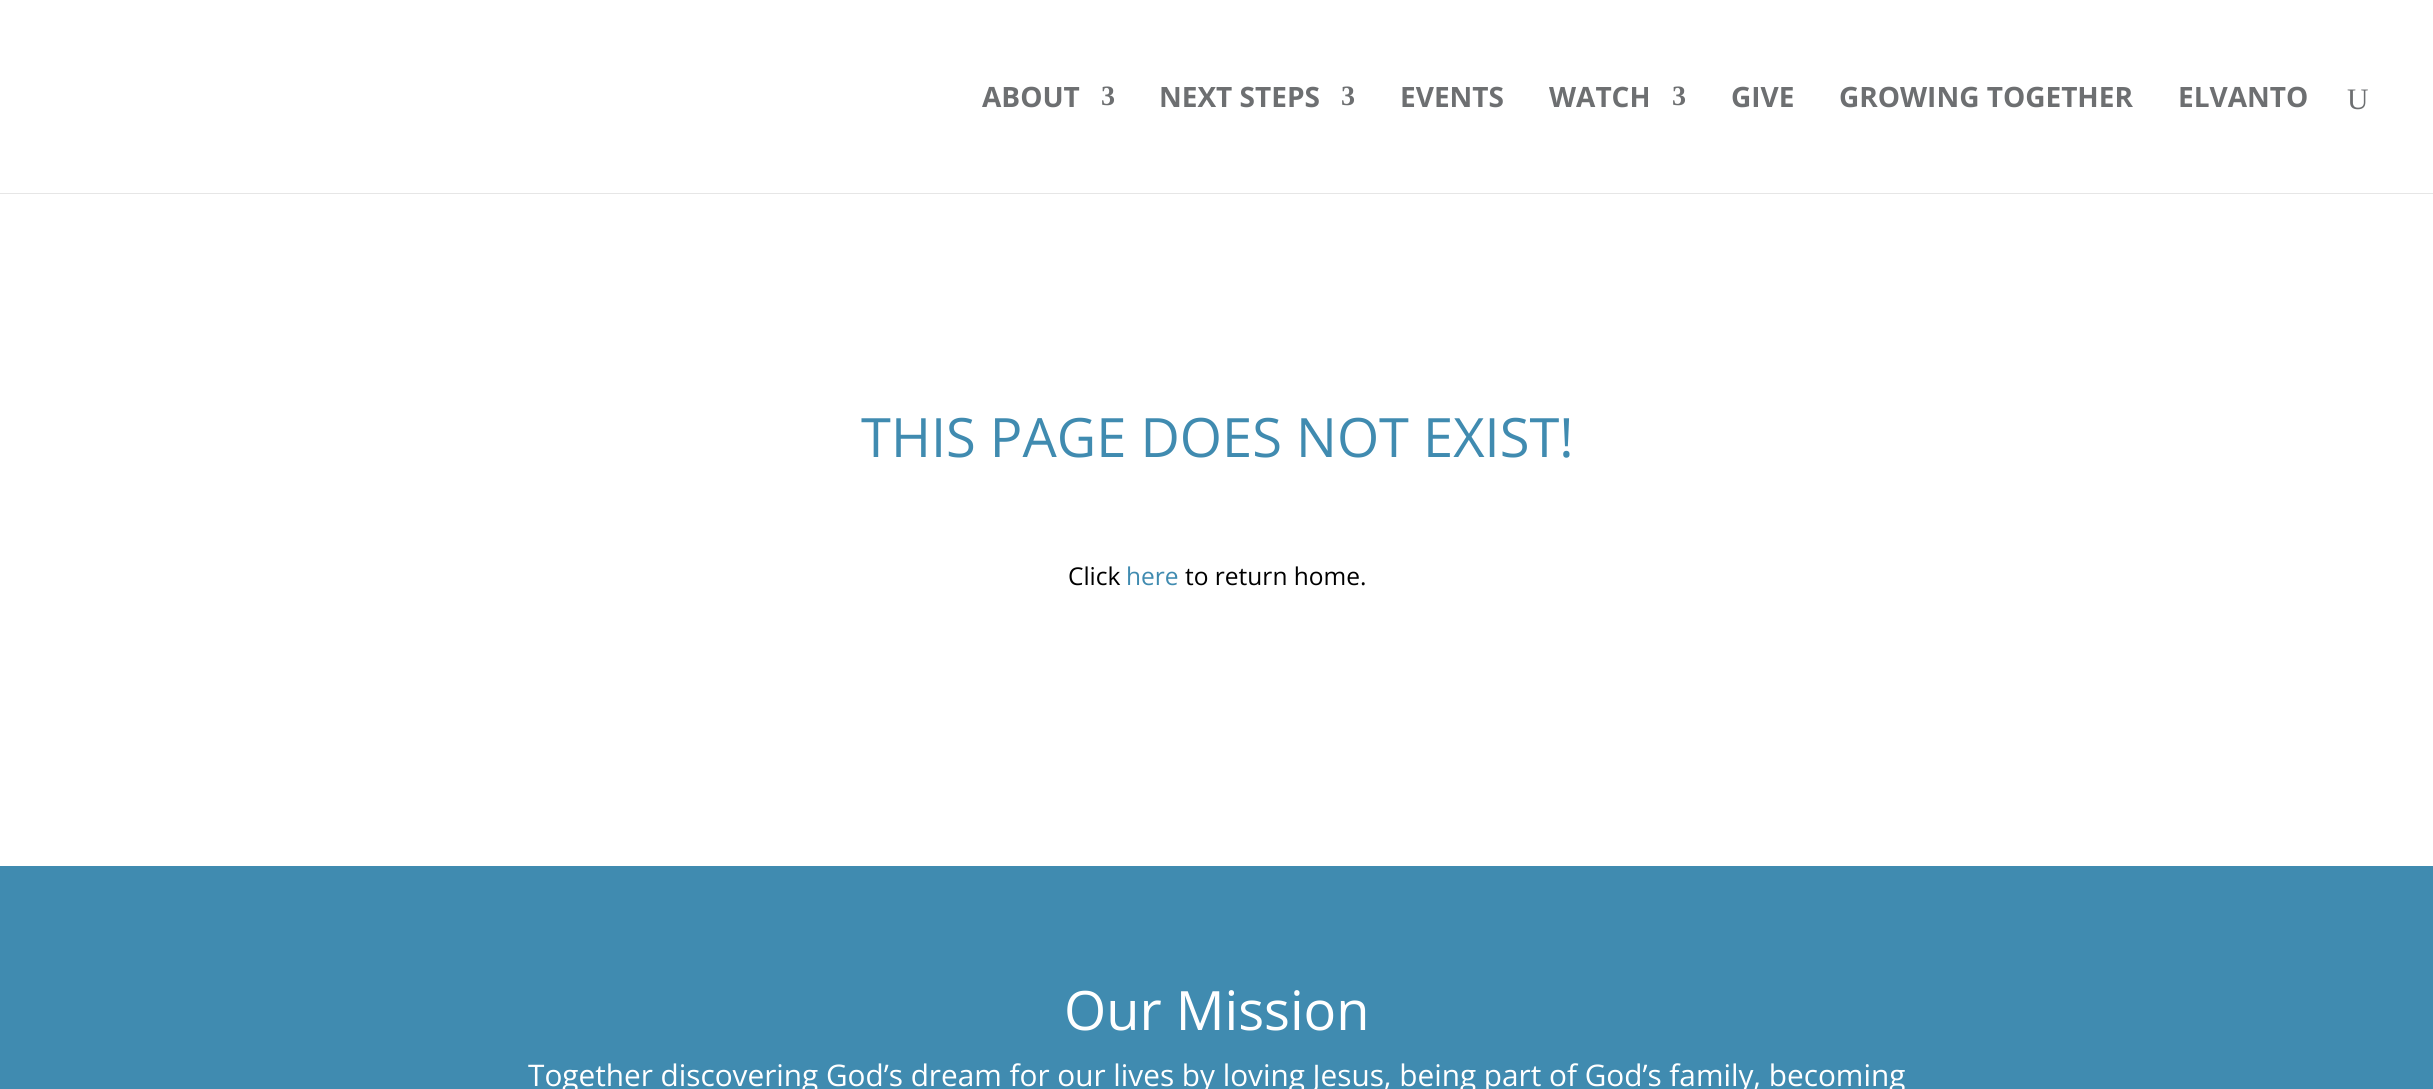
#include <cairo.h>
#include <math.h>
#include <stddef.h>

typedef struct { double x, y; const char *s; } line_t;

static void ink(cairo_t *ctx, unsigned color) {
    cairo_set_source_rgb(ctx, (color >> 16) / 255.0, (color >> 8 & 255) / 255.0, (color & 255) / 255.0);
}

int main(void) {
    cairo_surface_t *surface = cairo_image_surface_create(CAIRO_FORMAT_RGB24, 2433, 1089);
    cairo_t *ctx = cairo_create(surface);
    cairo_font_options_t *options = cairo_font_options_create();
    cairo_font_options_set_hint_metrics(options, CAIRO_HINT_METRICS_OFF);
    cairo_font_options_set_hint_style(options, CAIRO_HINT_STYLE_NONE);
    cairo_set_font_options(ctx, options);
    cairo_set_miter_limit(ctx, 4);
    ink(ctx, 0xFFFFFF);
    cairo_paint(ctx);
    ink(ctx, 0xE6E6E6);
    cairo_rectangle(ctx, 0, 193, 2433, 1);
    cairo_fill(ctx);
    cairo_select_font_face(ctx, "Open Sans", CAIRO_FONT_SLANT_NORMAL, CAIRO_FONT_WEIGHT_BOLD);
    cairo_set_font_size(ctx, 28);
    ink(ctx, 0x6D6F71);
    cairo_move_to(ctx, 982, 107);
    cairo_show_text(ctx, "ABOUT");
    cairo_select_font_face(ctx, "Liberation Serif", CAIRO_FONT_SLANT_NORMAL, CAIRO_FONT_WEIGHT_BOLD);
    cairo_move_to(ctx, 1101, 105);
    cairo_show_text(ctx, "3");
    cairo_select_font_face(ctx, "Open Sans", CAIRO_FONT_SLANT_NORMAL, CAIRO_FONT_WEIGHT_BOLD);
    cairo_move_to(ctx, 1159, 107);
    cairo_show_text(ctx, "NEXT STEPS");
    cairo_select_font_face(ctx, "Liberation Serif", CAIRO_FONT_SLANT_NORMAL, CAIRO_FONT_WEIGHT_BOLD);
    cairo_move_to(ctx, 1341, 105);
    cairo_show_text(ctx, "3");
    cairo_select_font_face(ctx, "Open Sans", CAIRO_FONT_SLANT_NORMAL, CAIRO_FONT_WEIGHT_BOLD);
    cairo_move_to(ctx, 1400, 107);
    cairo_show_text(ctx, "EVENTS");
    cairo_move_to(ctx, 1549, 107);
    cairo_show_text(ctx, "WATCH");
    cairo_select_font_face(ctx, "Liberation Serif", CAIRO_FONT_SLANT_NORMAL, CAIRO_FONT_WEIGHT_BOLD);
    cairo_move_to(ctx, 1672, 105);
    cairo_show_text(ctx, "3");
    cairo_select_font_face(ctx, "Open Sans", CAIRO_FONT_SLANT_NORMAL, CAIRO_FONT_WEIGHT_BOLD);
    {
        static const line_t items[] = {
            {1731, 107, "GIVE"},
            {1839, 107, "GROWING TOGETHER"},
            {2178, 107, "ELVANTO"},
        };
        for (size_t i = 0; i < sizeof items / sizeof *items; i++) {
            cairo_move_to(ctx, items[i].x, items[i].y);
            cairo_show_text(ctx, items[i].s);
        }
    }
    cairo_select_font_face(ctx, "Liberation Serif", CAIRO_FONT_SLANT_NORMAL, CAIRO_FONT_WEIGHT_NORMAL);
    cairo_set_font_size(ctx, 29.75);
    cairo_move_to(ctx, 2347, 109);
    cairo_show_text(ctx, "U");
    cairo_select_font_face(ctx, "Open Sans", CAIRO_FONT_SLANT_NORMAL, CAIRO_FONT_WEIGHT_NORMAL);
    cairo_set_font_size(ctx, 54.25);
    ink(ctx, 0x408BB0);
    cairo_move_to(ctx, 861, 457);
    cairo_show_text(ctx, "THIS PAGE DOES NOT EXIST!");
    cairo_set_font_size(ctx, 24.5);
    ink(ctx, 0x000000);
    cairo_move_to(ctx, 1068, 585);
    cairo_show_text(ctx, "Click");
    ink(ctx, 0x408BB0);
    cairo_move_to(ctx, 1126, 585);
    cairo_show_text(ctx, "here");
    ink(ctx, 0x000000);
    cairo_move_to(ctx, 1185, 585);
    cairo_show_text(ctx, "to return home.");
    ink(ctx, 0x408BB0);
    cairo_rectangle(ctx, 0, 866, 2433, 223);
    cairo_fill(ctx);
    cairo_set_font_size(ctx, 54.25);
    ink(ctx, 0xFFFFFF);
    cairo_move_to(ctx, 1064, 1030);
    cairo_show_text(ctx, "Our Mission");
    cairo_set_font_size(ctx, 29.75);
    cairo_move_to(ctx, 528, 1086);
    cairo_show_text(ctx, "Together discovering God’s dream for our lives by loving Jesus, being part of God’s family, becoming");
    cairo_surface_write_to_png(surface, "image.png");
    cairo_font_options_destroy(options);
    cairo_destroy(ctx);
    cairo_surface_destroy(surface);
    return 0;
}
